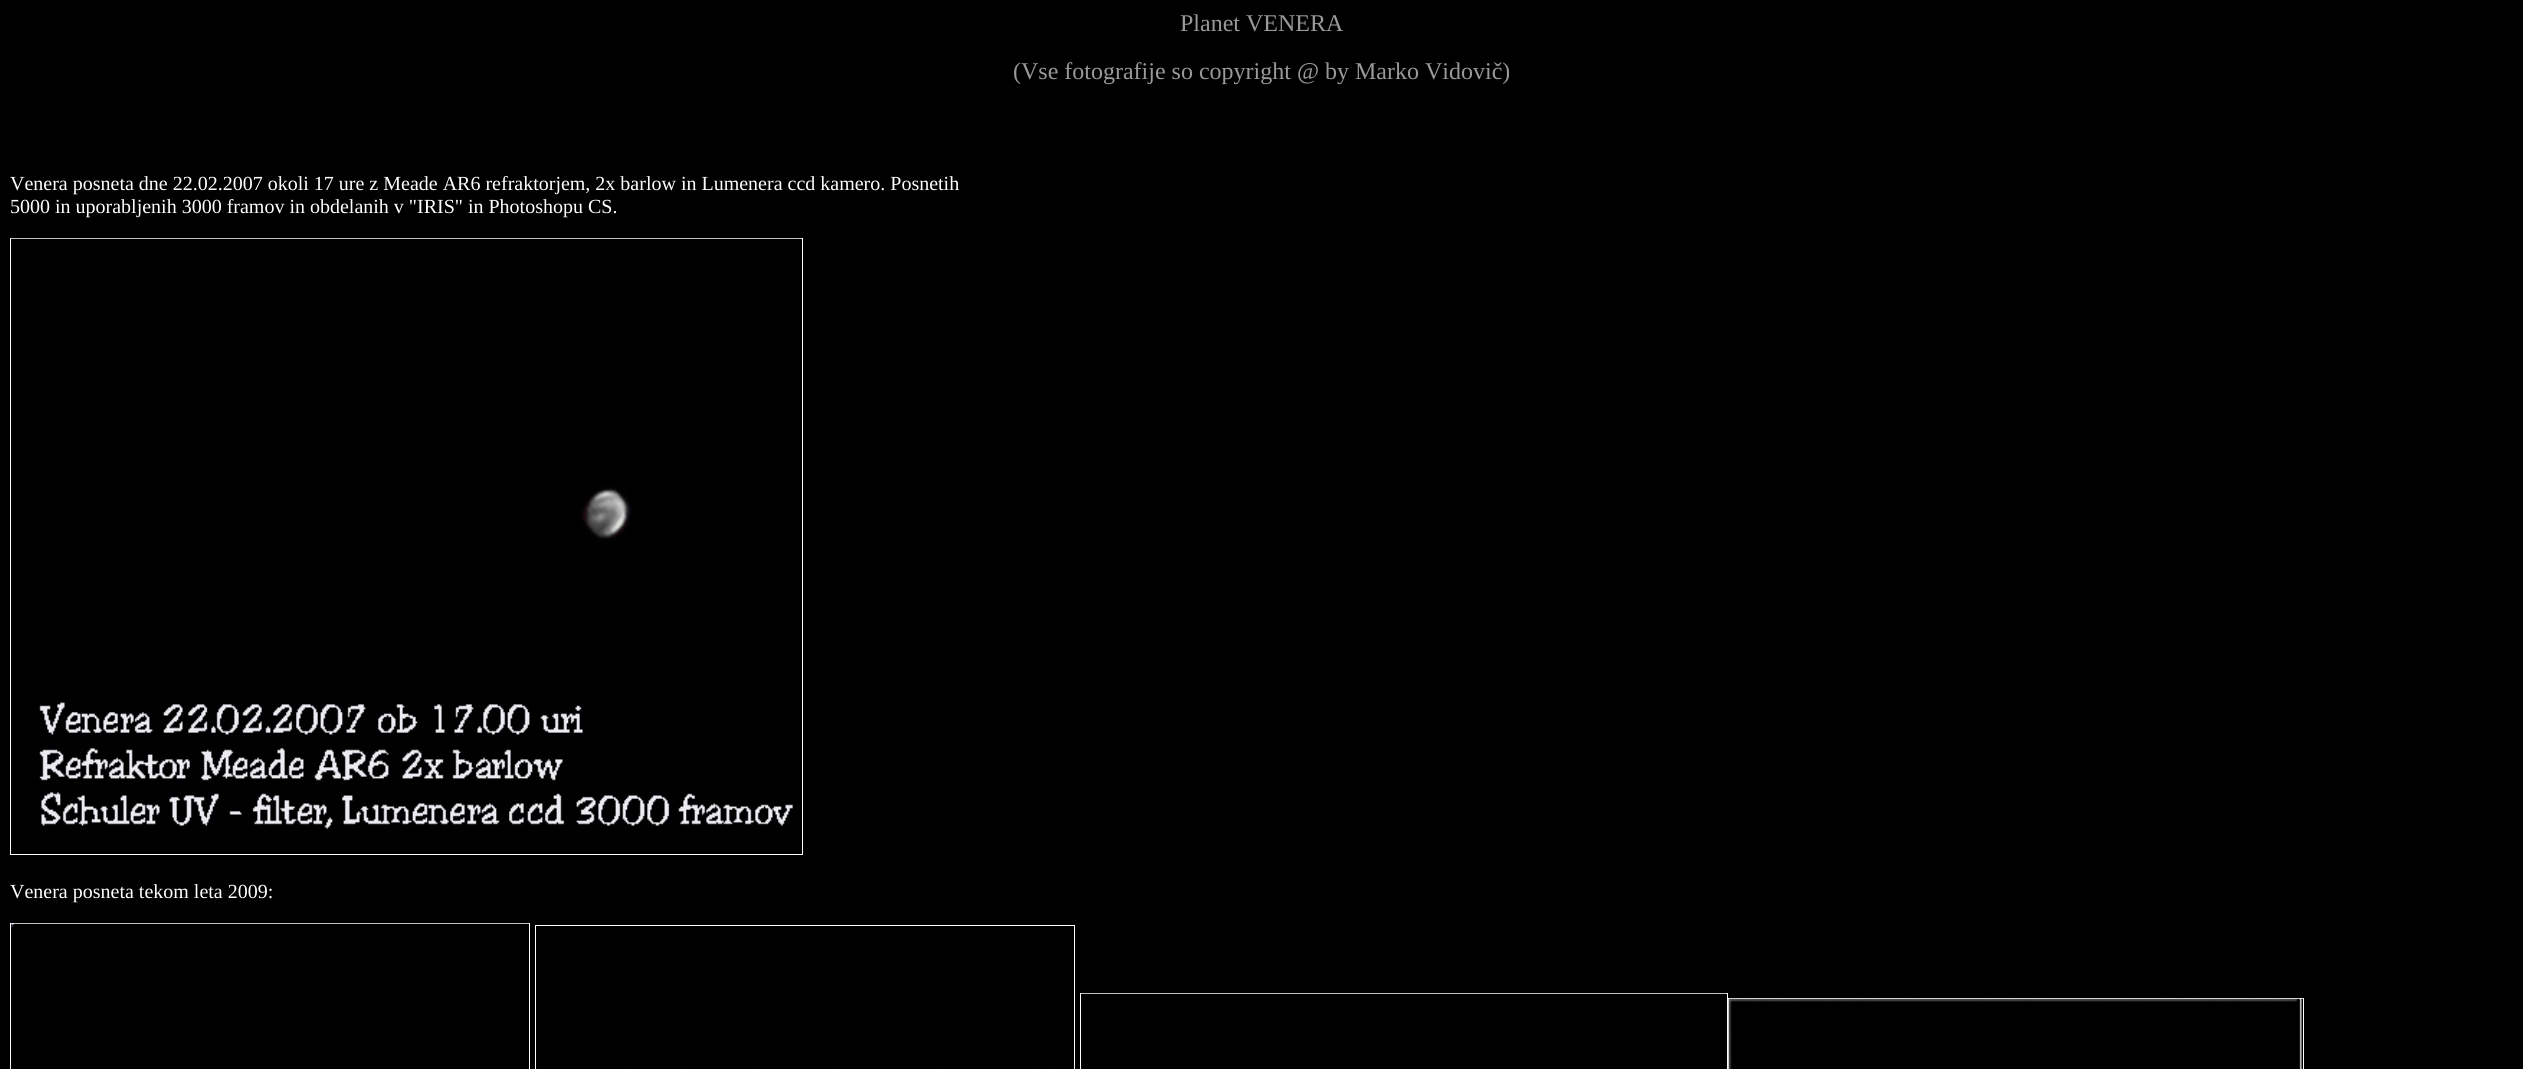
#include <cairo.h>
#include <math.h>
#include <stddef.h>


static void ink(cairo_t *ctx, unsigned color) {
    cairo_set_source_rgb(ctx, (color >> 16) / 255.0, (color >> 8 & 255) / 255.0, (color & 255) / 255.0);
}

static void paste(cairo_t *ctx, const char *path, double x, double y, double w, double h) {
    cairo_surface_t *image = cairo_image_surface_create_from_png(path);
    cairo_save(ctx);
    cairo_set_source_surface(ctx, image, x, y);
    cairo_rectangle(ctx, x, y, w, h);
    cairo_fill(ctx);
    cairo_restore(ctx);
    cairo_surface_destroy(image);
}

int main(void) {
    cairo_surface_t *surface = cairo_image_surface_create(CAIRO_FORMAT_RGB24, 2523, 1069);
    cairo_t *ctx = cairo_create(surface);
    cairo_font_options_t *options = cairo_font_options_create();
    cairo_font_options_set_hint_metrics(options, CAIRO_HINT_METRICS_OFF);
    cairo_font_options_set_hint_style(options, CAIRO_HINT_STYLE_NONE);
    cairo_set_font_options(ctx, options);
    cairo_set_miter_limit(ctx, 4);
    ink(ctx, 0x000000);
    cairo_paint(ctx);
    cairo_select_font_face(ctx, "Liberation Serif", CAIRO_FONT_SLANT_NORMAL, CAIRO_FONT_WEIGHT_NORMAL);
    cairo_set_font_size(ctx, 24);
    ink(ctx, 0x999999);
    cairo_move_to(ctx, 1180, 31);
    cairo_show_text(ctx, "Planet VENERA");
    cairo_move_to(ctx, 1013, 79);
    cairo_show_text(ctx, "(Vse fotografije so copyright @ by Marko Vidovič)");
    cairo_set_font_size(ctx, 20);
    ink(ctx, 0xFFFFFF);
    cairo_move_to(ctx, 10, 190);
    cairo_show_text(ctx, "Venera posneta dne 22.02.2007 okoli 17 ure z Meade AR6 refraktorjem, 2x barlow in Lumenera ccd kamero. Posnetih");
    cairo_move_to(ctx, 10, 213);
    cairo_show_text(ctx, "5000 in uporabljenih 3000 framov in obdelanih v \"IRIS\" in Photoshopu CS.");
    cairo_rectangle(ctx, 10.5, 238.5, 792, 616);
    cairo_set_line_width(ctx, 1);
    cairo_stroke(ctx);
    paste(ctx, "media/1.png", 11, 238, 791, 592);
    cairo_move_to(ctx, 10, 898);
    cairo_show_text(ctx, "Venera posneta tekom leta 2009:");
    cairo_rectangle(ctx, 10.5, 923.5, 519, 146);
    cairo_stroke(ctx);
    paste(ctx, "media/2.png", 11, 923, 518, 5);
    cairo_rectangle(ctx, 535.5, 925.5, 539, 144);
    cairo_stroke(ctx);
    paste(ctx, "media/3.png", 538, 926, 518, 143);
    cairo_rectangle(ctx, 1080.5, 993.5, 647, 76);
    cairo_stroke(ctx);
    paste(ctx, "media/4.png", 1081, 993, 646, 1);
    cairo_rectangle(ctx, 1728.5, 998.5, 575, 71);
    cairo_stroke(ctx);
    paste(ctx, "media/5.png", 1728, 998, 575, 71);
    cairo_surface_write_to_png(surface, "image.png");
    cairo_font_options_destroy(options);
    cairo_destroy(ctx);
    cairo_surface_destroy(surface);
    return 0;
}
